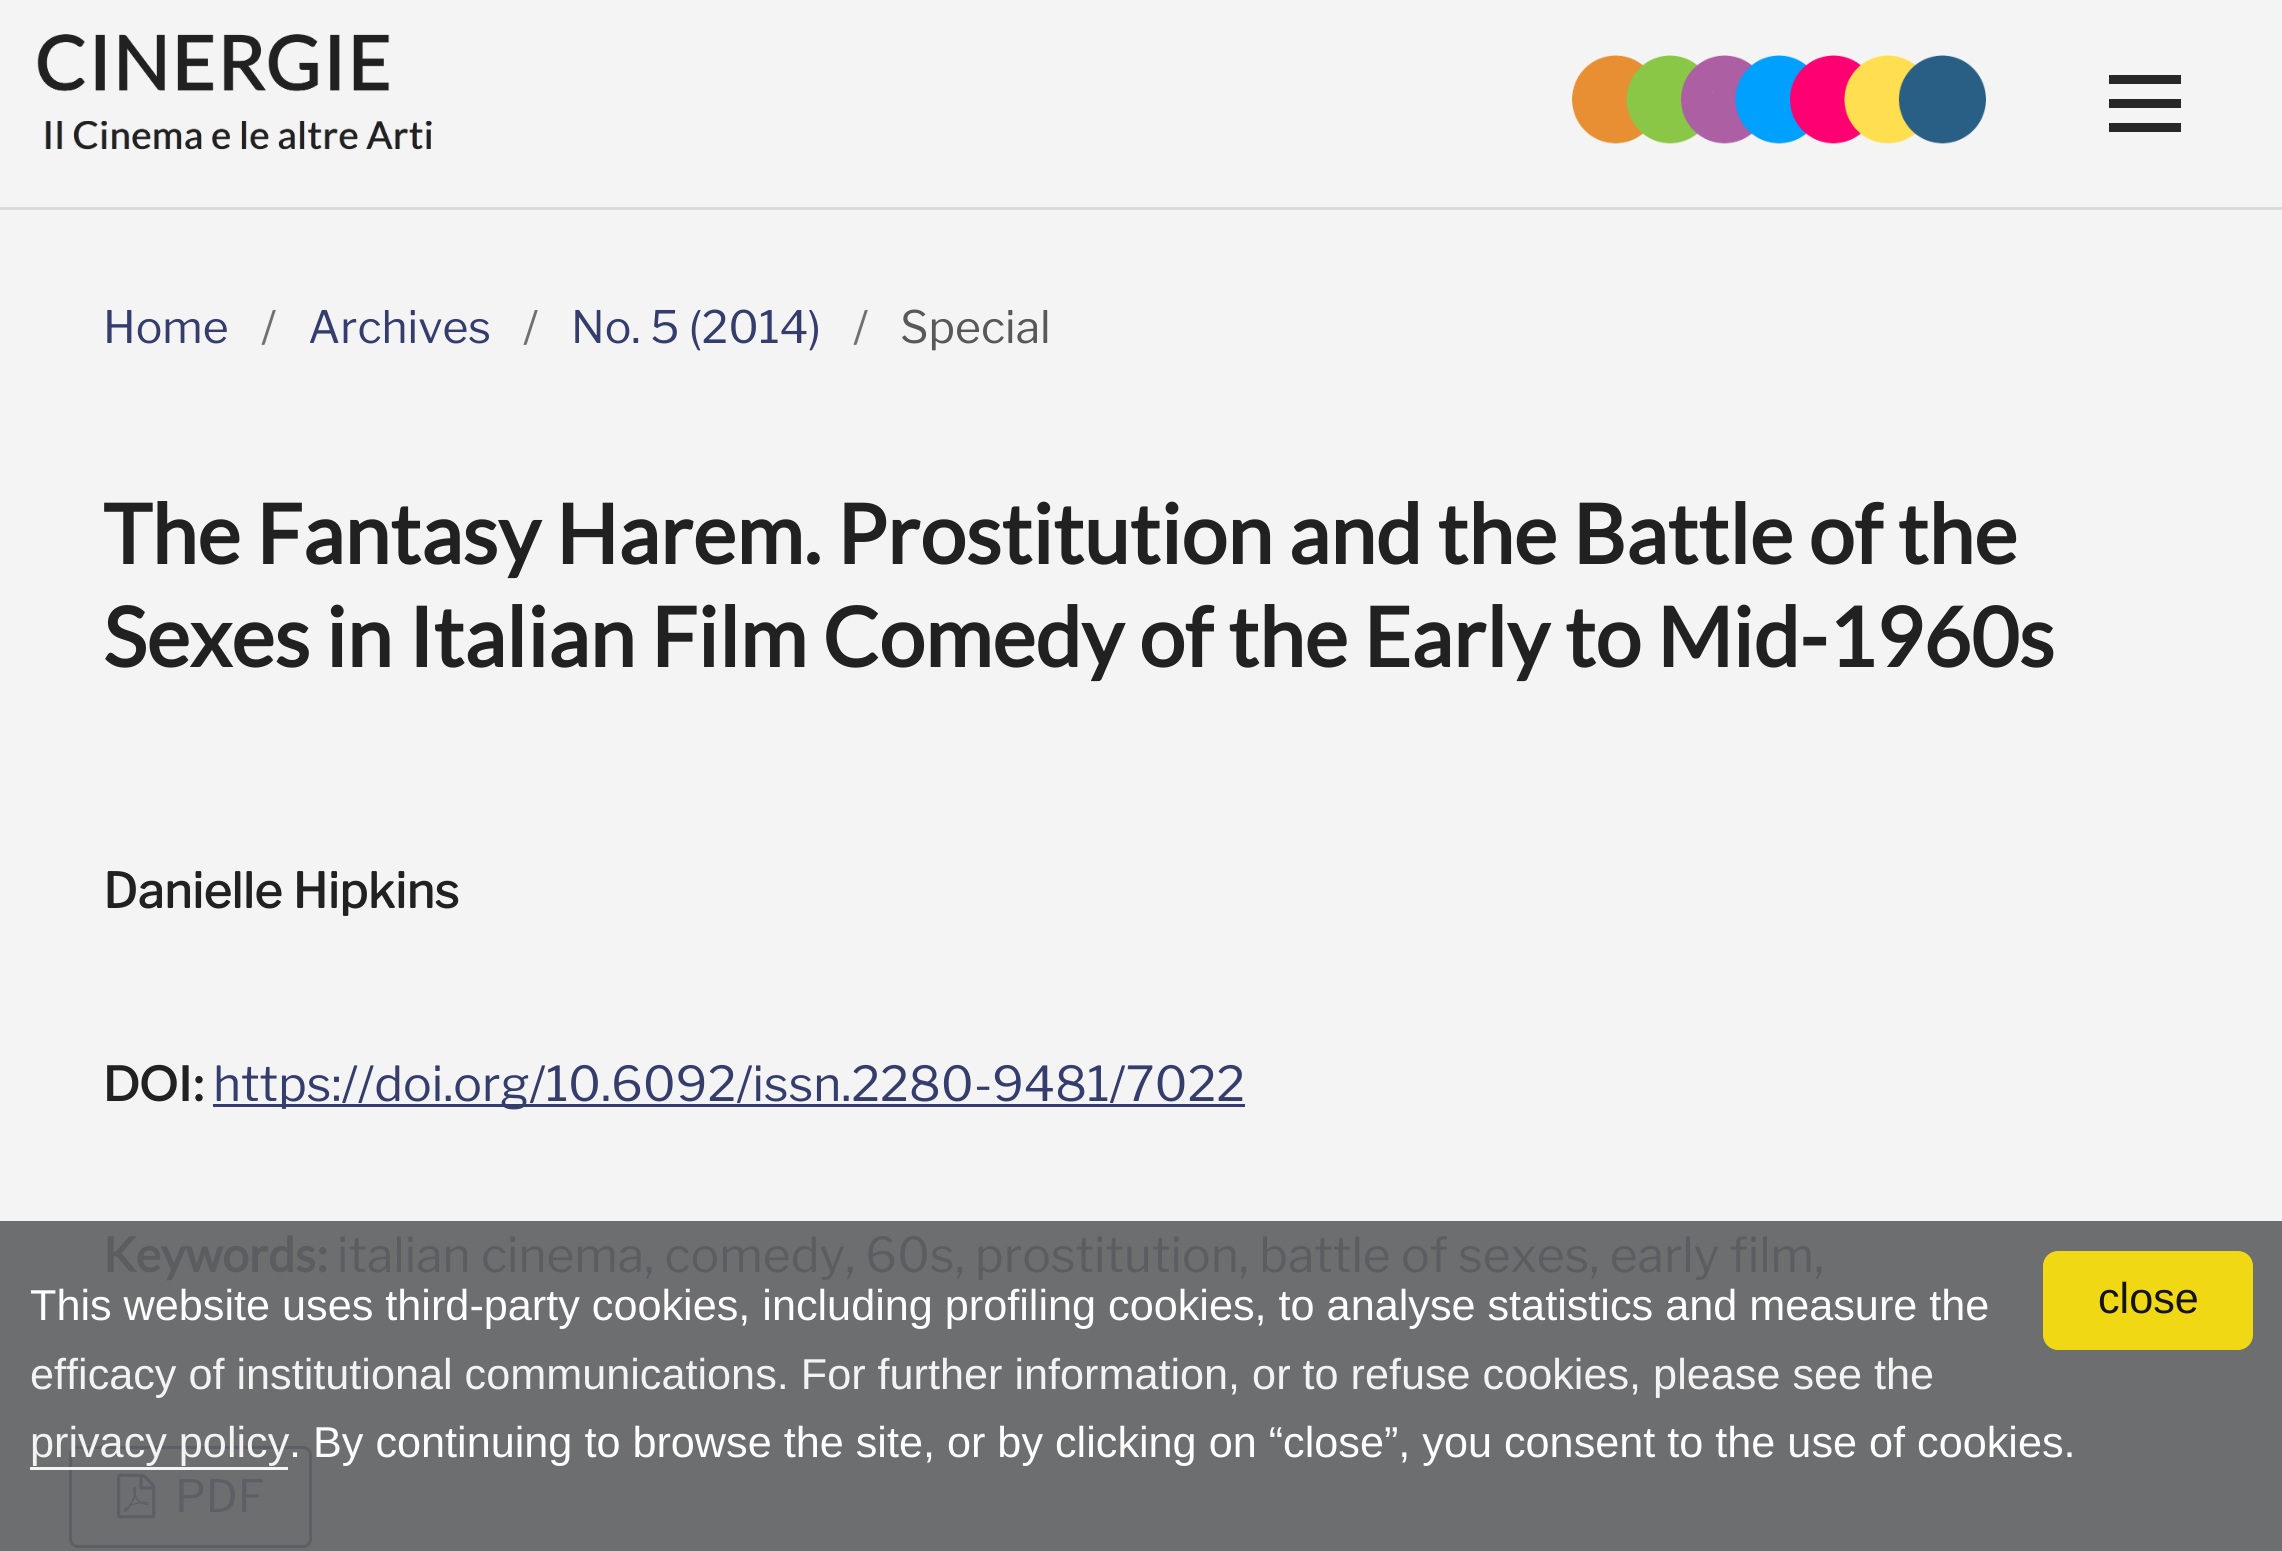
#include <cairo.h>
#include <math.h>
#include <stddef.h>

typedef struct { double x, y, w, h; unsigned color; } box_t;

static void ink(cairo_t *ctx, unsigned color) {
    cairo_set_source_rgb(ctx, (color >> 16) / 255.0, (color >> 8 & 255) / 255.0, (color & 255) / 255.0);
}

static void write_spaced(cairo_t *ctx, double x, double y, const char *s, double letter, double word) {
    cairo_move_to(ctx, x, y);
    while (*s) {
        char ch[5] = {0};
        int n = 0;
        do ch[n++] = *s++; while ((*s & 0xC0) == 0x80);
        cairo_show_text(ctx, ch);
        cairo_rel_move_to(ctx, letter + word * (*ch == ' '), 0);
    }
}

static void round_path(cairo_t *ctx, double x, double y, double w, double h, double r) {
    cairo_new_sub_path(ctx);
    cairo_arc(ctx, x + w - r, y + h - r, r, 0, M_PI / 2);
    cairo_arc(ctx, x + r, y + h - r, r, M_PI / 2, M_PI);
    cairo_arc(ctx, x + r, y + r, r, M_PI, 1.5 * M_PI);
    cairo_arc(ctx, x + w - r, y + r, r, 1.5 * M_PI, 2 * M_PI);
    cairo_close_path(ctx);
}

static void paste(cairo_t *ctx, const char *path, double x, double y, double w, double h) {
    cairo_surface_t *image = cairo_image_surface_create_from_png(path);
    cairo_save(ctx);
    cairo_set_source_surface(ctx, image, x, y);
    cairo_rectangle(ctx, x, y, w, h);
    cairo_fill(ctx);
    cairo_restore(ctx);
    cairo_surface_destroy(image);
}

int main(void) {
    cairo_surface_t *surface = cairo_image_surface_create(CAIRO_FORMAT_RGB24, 2282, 1551);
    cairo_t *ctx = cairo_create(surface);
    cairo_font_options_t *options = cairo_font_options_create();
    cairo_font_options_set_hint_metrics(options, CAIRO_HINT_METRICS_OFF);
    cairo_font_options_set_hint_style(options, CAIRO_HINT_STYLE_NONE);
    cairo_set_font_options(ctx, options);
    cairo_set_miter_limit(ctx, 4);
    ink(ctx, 0xF4F4F4);
    cairo_paint(ctx);
    ink(ctx, 0x6D6E70);
    cairo_rectangle(ctx, 0, 1221, 2282, 330);
    cairo_fill(ctx);
    ink(ctx, 0xDBDBDB);
    cairo_rectangle(ctx, 0, 207, 2282, 3);
    cairo_fill(ctx);
    paste(ctx, "media/1.png", 1572, 55, 414, 89);
    paste(ctx, "media/2.png", 37, 34, 395, 116);
    {
        static const box_t items[] = {
            {2109, 123, 72, 9, 0x272727},
            {2109, 75, 72, 9, 0x272727},
            {2109, 99, 72, 9, 0x272727},
        };
        for (size_t i = 0; i < sizeof items / sizeof *items; i++) {
            ink(ctx, items[i].color);
            cairo_rectangle(ctx, items[i].x, items[i].y, items[i].w, items[i].h);
            cairo_fill(ctx);
        }
    }
    cairo_select_font_face(ctx, "Libre Franklin Thin", CAIRO_FONT_SLANT_NORMAL, CAIRO_FONT_WEIGHT_NORMAL);
    cairo_set_font_size(ctx, 44.5);
    ink(ctx, 0x353D6D);
    cairo_move_to(ctx, 103, 343);
    cairo_show_text(ctx, "Home");
    ink(ctx, 0x707070);
    cairo_move_to(ctx, 261, 343);
    cairo_show_text(ctx, "/");
    ink(ctx, 0x353D6D);
    cairo_move_to(ctx, 308, 343);
    cairo_show_text(ctx, "Archives");
    ink(ctx, 0x707070);
    cairo_move_to(ctx, 523, 343);
    cairo_show_text(ctx, "/");
    ink(ctx, 0x353D6D);
    cairo_move_to(ctx, 571, 343);
    cairo_show_text(ctx, "No. 5 (2014)");
    ink(ctx, 0x707070);
    cairo_move_to(ctx, 853, 343);
    cairo_show_text(ctx, "/");
    ink(ctx, 0x585858);
    cairo_move_to(ctx, 900, 343);
    cairo_show_text(ctx, "Special");
    cairo_select_font_face(ctx, "Lato", CAIRO_FONT_SLANT_NORMAL, CAIRO_FONT_WEIGHT_BOLD);
    cairo_set_font_size(ctx, 82.25);
    ink(ctx, 0x212121);
    write_spaced(ctx, 103, 564, "The Fantasy Harem. Prostitution and the Battle of the", 0, -0.25);
    write_spaced(ctx, 103, 667, "Sexes in Italian Film Comedy of the Early to Mid-1960s", 0, -0.25);
    cairo_select_font_face(ctx, "Libre Franklin", CAIRO_FONT_SLANT_NORMAL, CAIRO_FONT_WEIGHT_BOLD);
    cairo_set_font_size(ctx, 48);
    cairo_move_to(ctx, 103, 908);
    cairo_show_text(ctx, "Danielle Hipkins");
    cairo_select_font_face(ctx, "Lato", CAIRO_FONT_SLANT_NORMAL, CAIRO_FONT_WEIGHT_BOLD);
    cairo_move_to(ctx, 103, 1101);
    cairo_show_text(ctx, "DOI:");
    ink(ctx, 0x353D6D);
    cairo_rectangle(ctx, 213, 1104, 1032, 3);
    cairo_fill(ctx);
    cairo_select_font_face(ctx, "Libre Franklin Thin", CAIRO_FONT_SLANT_NORMAL, CAIRO_FONT_WEIGHT_NORMAL);
    cairo_move_to(ctx, 213, 1101);
    cairo_show_text(ctx, "https://doi.org/10.6092/issn.2280-9481/7022");
    cairo_select_font_face(ctx, "Lato", CAIRO_FONT_SLANT_NORMAL, CAIRO_FONT_WEIGHT_BOLD);
    ink(ctx, 0x5C5D60);
    cairo_move_to(ctx, 103, 1272);
    cairo_show_text(ctx, "Keywords:");
    cairo_select_font_face(ctx, "Libre Franklin Thin", CAIRO_FONT_SLANT_NORMAL, CAIRO_FONT_WEIGHT_NORMAL);
    cairo_move_to(ctx, 337, 1272);
    cairo_show_text(ctx, "italian cinema, comedy, 60s, prostitution, battle of sexes, early film,");
    round_path(ctx, 70.5, 1447.5, 240, 99, 7.5);
    ink(ctx, 0x5D5F66);
    cairo_set_line_width(ctx, 3);
    cairo_stroke(ctx);
    paste(ctx, "media/3.png", 117, 1473, 39, 46);
    cairo_set_font_size(ctx, 44.5);
    cairo_move_to(ctx, 175, 1512);
    cairo_show_text(ctx, "PDF");
    cairo_select_font_face(ctx, "Liberation Sans", CAIRO_FONT_SLANT_NORMAL, CAIRO_FONT_WEIGHT_NORMAL);
    cairo_set_font_size(ctx, 43.2);
    ink(ctx, 0xFEFEFE);
    cairo_move_to(ctx, 30, 1320);
    cairo_show_text(ctx, "This website uses third-party cookies, including profiling cookies, to analyse statistics and measure the");
    ink(ctx, 0xF3F3F4);
    cairo_move_to(ctx, 30, 1389);
    cairo_show_text(ctx, "efficacy of institutional communications. For further information, or to refuse cookies, please see the");
    cairo_move_to(ctx, 30, 1457);
    cairo_show_text(ctx, "privacy policy");
    cairo_set_source_rgba(ctx, 1, 1, 1, 0.92);
    cairo_rectangle(ctx, 30, 1467, 258, 3);
    cairo_fill(ctx);
    ink(ctx, 0xFEFEFE);
    cairo_move_to(ctx, 289, 1457);
    cairo_show_text(ctx, ". By continuing to browse the site, or by clicking on “close”, you consent to the use of cookies.");
    ink(ctx, 0xF1D814);
    round_path(ctx, 2043, 1251, 210, 99, 15);
    cairo_fill(ctx);
    ink(ctx, 0x141414);
    cairo_move_to(ctx, 2098, 1313);
    cairo_show_text(ctx, "close");
    cairo_surface_write_to_png(surface, "image.png");
    cairo_font_options_destroy(options);
    cairo_destroy(ctx);
    cairo_surface_destroy(surface);
    return 0;
}
